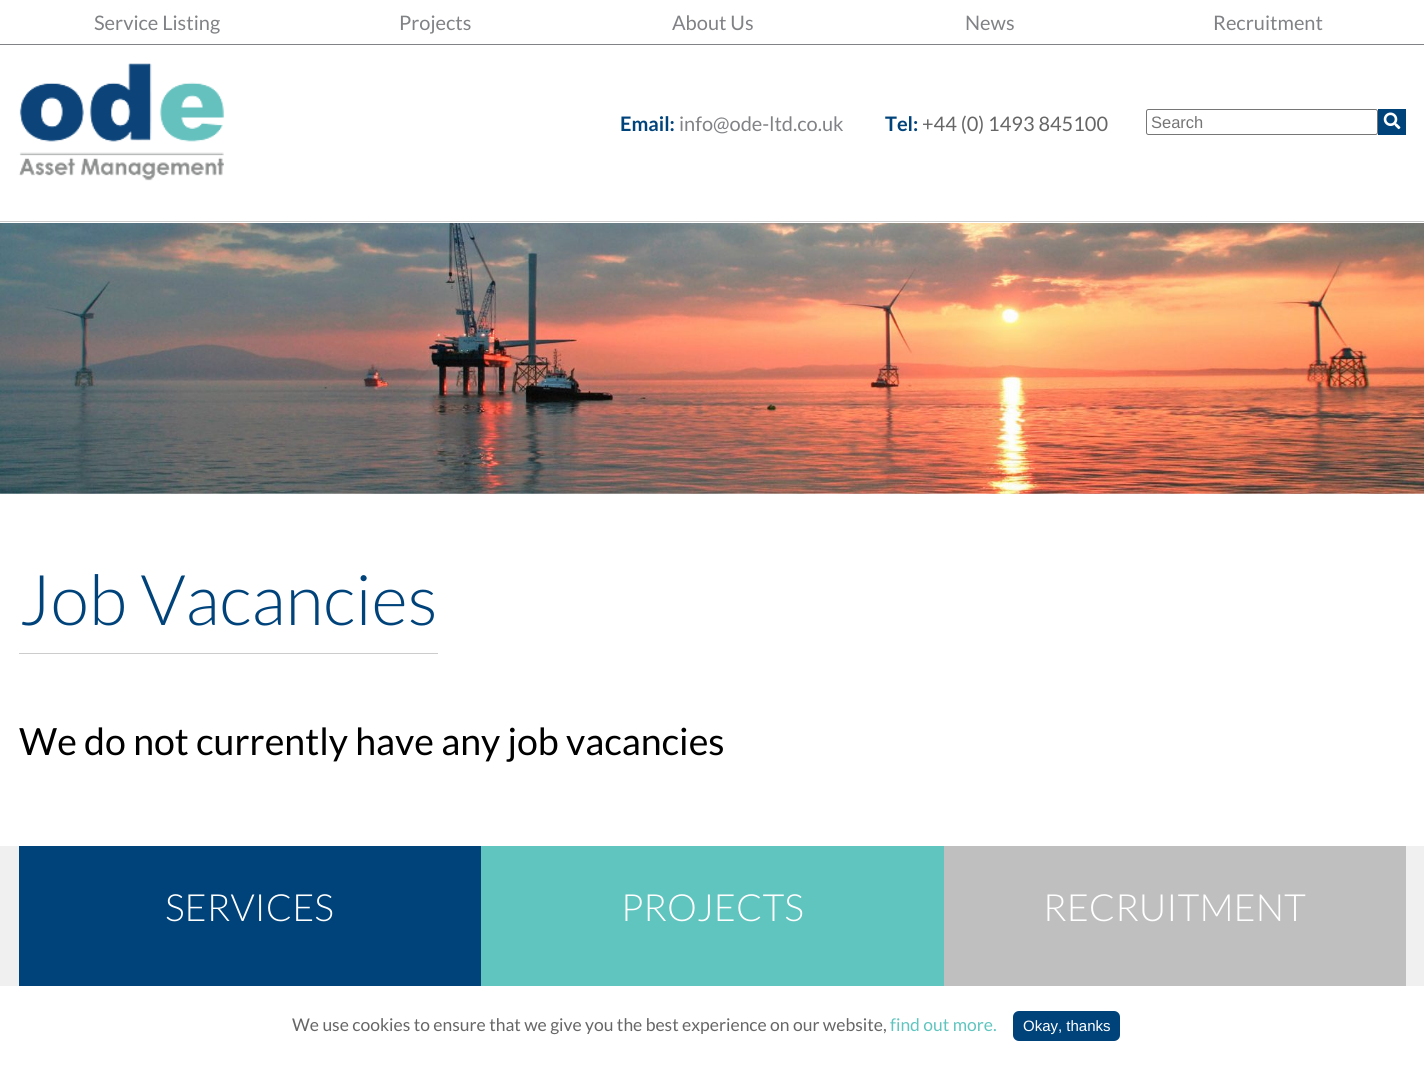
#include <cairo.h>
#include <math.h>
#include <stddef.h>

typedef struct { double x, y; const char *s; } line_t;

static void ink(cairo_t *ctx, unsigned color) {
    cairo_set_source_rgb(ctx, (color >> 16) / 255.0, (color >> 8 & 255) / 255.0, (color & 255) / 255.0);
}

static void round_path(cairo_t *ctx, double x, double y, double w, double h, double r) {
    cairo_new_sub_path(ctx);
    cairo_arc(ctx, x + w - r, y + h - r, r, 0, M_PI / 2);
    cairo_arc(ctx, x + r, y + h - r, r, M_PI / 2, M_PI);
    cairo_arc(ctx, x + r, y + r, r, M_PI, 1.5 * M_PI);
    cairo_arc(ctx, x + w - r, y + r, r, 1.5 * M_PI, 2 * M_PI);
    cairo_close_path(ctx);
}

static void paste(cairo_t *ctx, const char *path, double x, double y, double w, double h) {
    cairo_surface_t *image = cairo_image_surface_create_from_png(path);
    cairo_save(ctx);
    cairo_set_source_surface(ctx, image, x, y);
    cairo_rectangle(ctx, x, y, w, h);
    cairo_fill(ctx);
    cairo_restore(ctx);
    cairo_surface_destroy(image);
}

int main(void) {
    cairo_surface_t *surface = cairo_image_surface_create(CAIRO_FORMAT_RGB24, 1424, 1066);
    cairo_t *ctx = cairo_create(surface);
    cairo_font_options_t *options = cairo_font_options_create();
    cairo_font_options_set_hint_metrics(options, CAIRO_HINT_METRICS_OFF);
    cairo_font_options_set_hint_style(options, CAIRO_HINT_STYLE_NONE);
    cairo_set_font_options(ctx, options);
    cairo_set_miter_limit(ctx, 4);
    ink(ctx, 0xFFFFFF);
    cairo_paint(ctx);
    ink(ctx, 0x818285);
    cairo_rectangle(ctx, 0, 44, 1424, 1);
    cairo_fill(ctx);
    cairo_select_font_face(ctx, "Lato", CAIRO_FONT_SLANT_NORMAL, CAIRO_FONT_WEIGHT_NORMAL);
    cairo_set_font_size(ctx, 20);
    {
        static const line_t items[] = {
            {94, 30, "Service Listing"},
            {399, 30, "Projects"},
            {672, 30, "About Us"},
            {965, 30, "News"},
            {1213, 30, "Recruitment"},
        };
        for (size_t i = 0; i < sizeof items / sizeof *items; i++) {
            cairo_move_to(ctx, items[i].x, items[i].y);
            cairo_show_text(ctx, items[i].s);
        }
    }
    ink(ctx, 0xCCCCCC);
    cairo_rectangle(ctx, 0, 221, 1424, 1);
    cairo_fill(ctx);
    paste(ctx, "media/1.png", 18, 63, 206, 118);
    cairo_select_font_face(ctx, "Lato", CAIRO_FONT_SLANT_NORMAL, CAIRO_FONT_WEIGHT_BOLD);
    ink(ctx, 0x00437B);
    cairo_move_to(ctx, 620, 131);
    cairo_show_text(ctx, "Email:");
    cairo_select_font_face(ctx, "Lato", CAIRO_FONT_SLANT_NORMAL, CAIRO_FONT_WEIGHT_NORMAL);
    ink(ctx, 0x818285);
    cairo_move_to(ctx, 679, 131);
    cairo_show_text(ctx, "info@ode-ltd.co.uk");
    cairo_select_font_face(ctx, "Lato", CAIRO_FONT_SLANT_NORMAL, CAIRO_FONT_WEIGHT_BOLD);
    ink(ctx, 0x00437B);
    cairo_move_to(ctx, 885, 131);
    cairo_show_text(ctx, "Tel:");
    cairo_select_font_face(ctx, "Lato", CAIRO_FONT_SLANT_NORMAL, CAIRO_FONT_WEIGHT_NORMAL);
    ink(ctx, 0x666666);
    cairo_move_to(ctx, 922, 131);
    cairo_show_text(ctx, "+44 (0) 1493 845100");
    round_path(ctx, 1146.5, 109.5, 231, 25, 2);
    ink(ctx, 0x767676);
    cairo_set_line_width(ctx, 1);
    cairo_stroke(ctx);
    cairo_select_font_face(ctx, "Liberation Sans", CAIRO_FONT_SLANT_NORMAL, CAIRO_FONT_WEIGHT_NORMAL);
    cairo_set_font_size(ctx, 16.5);
    ink(ctx, 0x757575);
    cairo_move_to(ctx, 1151, 128);
    cairo_show_text(ctx, "Search");
    ink(ctx, 0x00437B);
    cairo_rectangle(ctx, 1378, 109, 28, 26);
    cairo_fill(ctx);
    paste(ctx, "media/2.png", 1383, 112, 18, 18);
    paste(ctx, "media/3.png", 0, 223, 1424, 271);
    cairo_select_font_face(ctx, "Lato Light", CAIRO_FONT_SLANT_NORMAL, CAIRO_FONT_WEIGHT_NORMAL);
    cairo_set_font_size(ctx, 70);
    cairo_move_to(ctx, 19, 625);
    cairo_show_text(ctx, "Job Vacancies");
    ink(ctx, 0xCCCCCC);
    cairo_rectangle(ctx, 19, 653, 419, 1);
    cairo_fill(ctx);
    cairo_select_font_face(ctx, "Lato", CAIRO_FONT_SLANT_NORMAL, CAIRO_FONT_WEIGHT_NORMAL);
    cairo_set_font_size(ctx, 37.5);
    ink(ctx, 0x000000);
    cairo_move_to(ctx, 19, 755);
    cairo_show_text(ctx, "We do not currently have any job vacancies");
    ink(ctx, 0xF1F0F0);
    cairo_rectangle(ctx, 0, 846, 1424, 140);
    cairo_fill(ctx);
    ink(ctx, 0x00437B);
    cairo_rectangle(ctx, 19, 846, 462, 140);
    cairo_fill(ctx);
    cairo_select_font_face(ctx, "Lato Light", CAIRO_FONT_SLANT_NORMAL, CAIRO_FONT_WEIGHT_NORMAL);
    ink(ctx, 0xFFFFFF);
    cairo_move_to(ctx, 165, 921);
    cairo_show_text(ctx, "SERVICES");
    ink(ctx, 0x60C5BF);
    cairo_rectangle(ctx, 481, 846, 463, 140);
    cairo_fill(ctx);
    ink(ctx, 0xFFFFFF);
    cairo_move_to(ctx, 621, 921);
    cairo_show_text(ctx, "PROJECTS");
    ink(ctx, 0xC0BFBF);
    cairo_rectangle(ctx, 944, 846, 462, 140);
    cairo_fill(ctx);
    ink(ctx, 0xFFFFFF);
    cairo_move_to(ctx, 1043, 921);
    cairo_show_text(ctx, "RECRUITMENT");
    cairo_select_font_face(ctx, "Lato", CAIRO_FONT_SLANT_NORMAL, CAIRO_FONT_WEIGHT_NORMAL);
    cairo_set_font_size(ctx, 17.5);
    ink(ctx, 0x666666);
    cairo_move_to(ctx, 292, 1031);
    cairo_show_text(ctx, "We use cookies to ensure that we give you the best experience on our website,");
    ink(ctx, 0x60C5BF);
    cairo_move_to(ctx, 890, 1031);
    cairo_show_text(ctx, "find out more.");
    ink(ctx, 0x00437B);
    round_path(ctx, 1013, 1011, 107, 30, 6);
    cairo_fill(ctx);
    cairo_select_font_face(ctx, "Liberation Sans", CAIRO_FONT_SLANT_NORMAL, CAIRO_FONT_WEIGHT_NORMAL);
    cairo_set_font_size(ctx, 15);
    ink(ctx, 0xFFFFFF);
    cairo_move_to(ctx, 1023, 1031);
    cairo_show_text(ctx, "Okay, thanks");
    cairo_surface_write_to_png(surface, "image.png");
    cairo_font_options_destroy(options);
    cairo_destroy(ctx);
    cairo_surface_destroy(surface);
    return 0;
}
